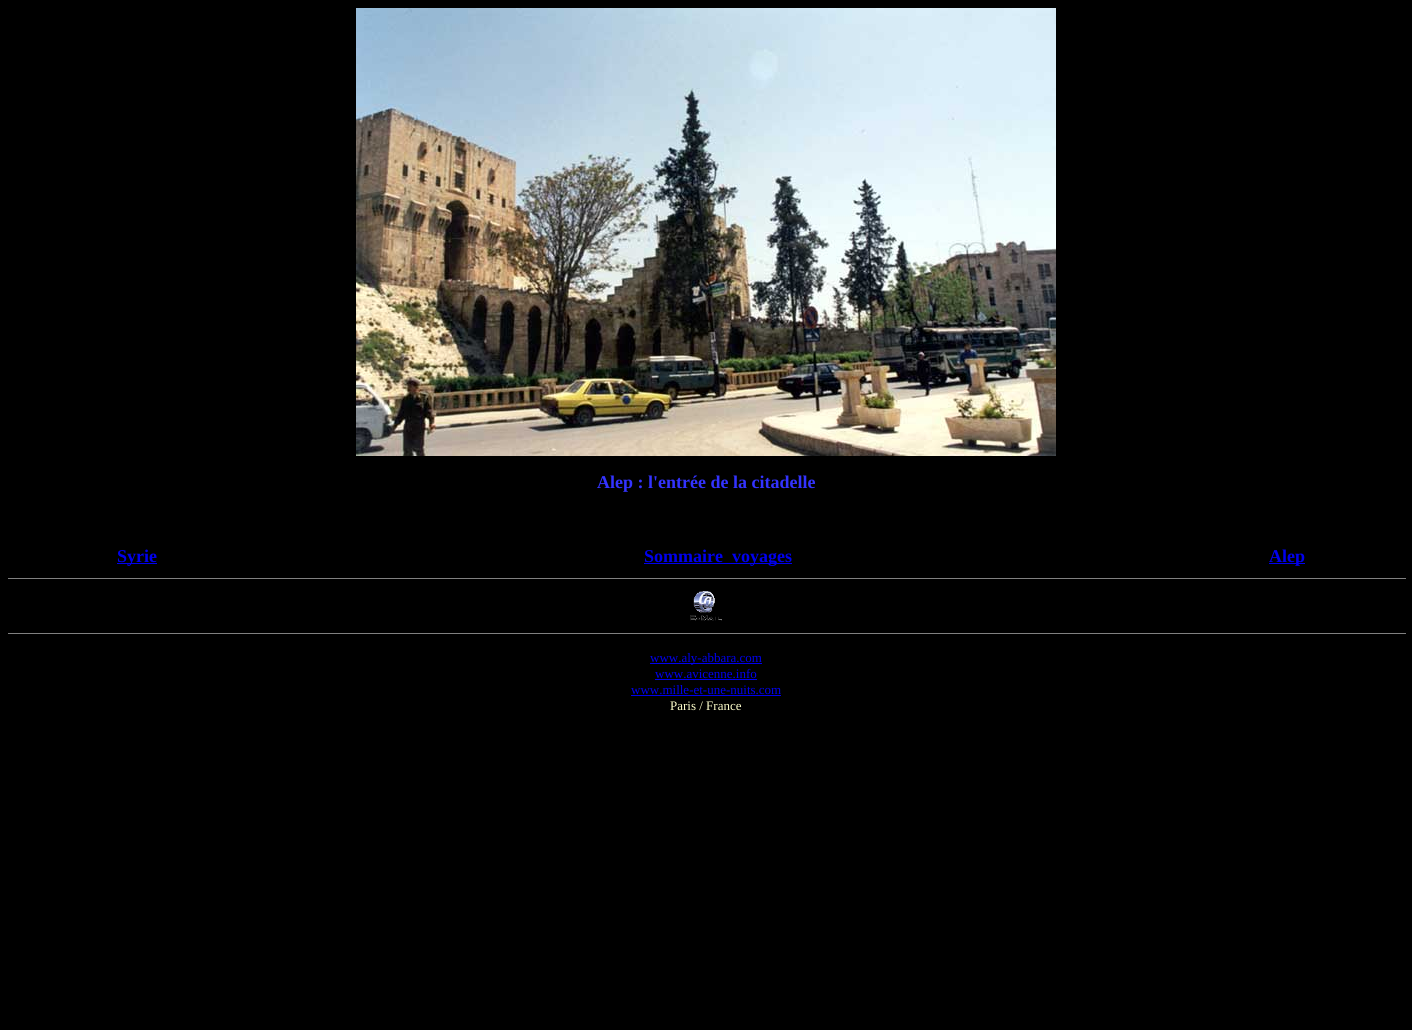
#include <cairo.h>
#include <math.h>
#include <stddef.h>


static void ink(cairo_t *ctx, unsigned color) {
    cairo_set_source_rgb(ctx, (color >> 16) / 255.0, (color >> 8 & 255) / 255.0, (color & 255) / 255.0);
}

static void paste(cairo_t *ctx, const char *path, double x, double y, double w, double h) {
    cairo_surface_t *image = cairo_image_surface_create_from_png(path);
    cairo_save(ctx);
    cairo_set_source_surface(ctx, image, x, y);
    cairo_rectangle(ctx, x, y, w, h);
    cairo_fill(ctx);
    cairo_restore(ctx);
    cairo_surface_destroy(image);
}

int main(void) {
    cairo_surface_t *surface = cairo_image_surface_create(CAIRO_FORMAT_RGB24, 1412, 1030);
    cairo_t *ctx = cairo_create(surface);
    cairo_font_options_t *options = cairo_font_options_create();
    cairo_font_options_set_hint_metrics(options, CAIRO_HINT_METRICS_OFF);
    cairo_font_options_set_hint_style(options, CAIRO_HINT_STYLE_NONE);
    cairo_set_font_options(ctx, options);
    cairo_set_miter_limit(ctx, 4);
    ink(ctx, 0x000000);
    cairo_paint(ctx);
    paste(ctx, "media/1.png", 356, 8, 700, 448);
    cairo_select_font_face(ctx, "Liberation Serif", CAIRO_FONT_SLANT_NORMAL, CAIRO_FONT_WEIGHT_BOLD);
    cairo_set_font_size(ctx, 18);
    ink(ctx, 0x3333FF);
    cairo_move_to(ctx, 597, 488);
    cairo_show_text(ctx, "Alep : l'entrée de la citadelle");
    ink(ctx, 0x0000EE);
    cairo_rectangle(ctx, 117, 563, 40, 1);
    cairo_fill(ctx);
    cairo_move_to(ctx, 117, 562);
    cairo_show_text(ctx, "Syrie");
    cairo_move_to(ctx, 644, 562);
    cairo_show_text(ctx, "Sommaire");
    cairo_rectangle(ctx, 644, 563, 148, 1);
    cairo_fill(ctx);
    cairo_move_to(ctx, 732, 562);
    cairo_show_text(ctx, "voyages");
    cairo_rectangle(ctx, 1269, 563, 36, 1);
    cairo_fill(ctx);
    cairo_move_to(ctx, 1269, 562);
    cairo_show_text(ctx, "Alep");
    ink(ctx, 0x808080);
    cairo_rectangle(ctx, 8, 578, 1398, 1);
    cairo_fill(ctx);
    paste(ctx, "media/2.png", 690, 591, 32, 30);
    cairo_rectangle(ctx, 8, 633, 1398, 1);
    cairo_fill(ctx);
    ink(ctx, 0x0000EE);
    cairo_rectangle(ctx, 650, 663, 112, 1);
    cairo_fill(ctx);
    cairo_select_font_face(ctx, "Liberation Serif", CAIRO_FONT_SLANT_NORMAL, CAIRO_FONT_WEIGHT_NORMAL);
    cairo_set_font_size(ctx, 13);
    cairo_move_to(ctx, 650, 662);
    cairo_show_text(ctx, "www.aly-abbara.com");
    cairo_move_to(ctx, 655, 678);
    cairo_show_text(ctx, "www.avicenne.info");
    cairo_rectangle(ctx, 655, 679, 102, 1);
    cairo_fill(ctx);
    cairo_move_to(ctx, 631, 694);
    cairo_show_text(ctx, "www.mille-et-une-nuits.com");
    cairo_rectangle(ctx, 631, 695, 150, 1);
    cairo_fill(ctx);
    ink(ctx, 0xFFFFCC);
    cairo_move_to(ctx, 670, 710);
    cairo_show_text(ctx, "Paris / France");
    cairo_surface_write_to_png(surface, "image.png");
    cairo_font_options_destroy(options);
    cairo_destroy(ctx);
    cairo_surface_destroy(surface);
    return 0;
}
